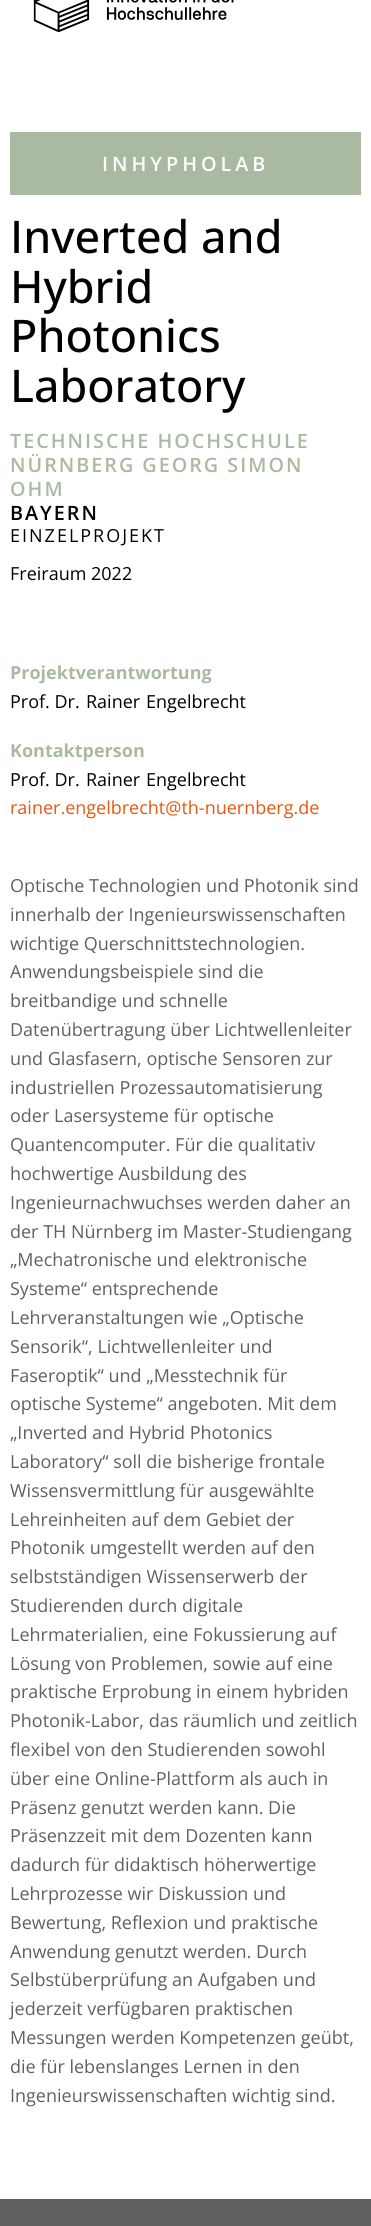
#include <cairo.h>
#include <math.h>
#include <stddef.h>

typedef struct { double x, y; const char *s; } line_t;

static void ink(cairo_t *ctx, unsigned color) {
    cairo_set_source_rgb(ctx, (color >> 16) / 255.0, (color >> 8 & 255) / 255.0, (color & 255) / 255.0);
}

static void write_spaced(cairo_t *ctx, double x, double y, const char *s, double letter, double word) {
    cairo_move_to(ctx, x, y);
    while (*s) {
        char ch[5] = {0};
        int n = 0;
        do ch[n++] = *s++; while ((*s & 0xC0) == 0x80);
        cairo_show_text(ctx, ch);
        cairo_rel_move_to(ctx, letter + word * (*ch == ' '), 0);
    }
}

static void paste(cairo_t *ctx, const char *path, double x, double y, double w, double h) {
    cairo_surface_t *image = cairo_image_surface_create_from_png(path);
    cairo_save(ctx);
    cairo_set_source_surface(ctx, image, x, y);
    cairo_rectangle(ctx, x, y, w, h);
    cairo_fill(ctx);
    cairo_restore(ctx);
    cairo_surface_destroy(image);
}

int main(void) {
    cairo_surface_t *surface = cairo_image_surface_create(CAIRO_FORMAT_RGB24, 371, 2226);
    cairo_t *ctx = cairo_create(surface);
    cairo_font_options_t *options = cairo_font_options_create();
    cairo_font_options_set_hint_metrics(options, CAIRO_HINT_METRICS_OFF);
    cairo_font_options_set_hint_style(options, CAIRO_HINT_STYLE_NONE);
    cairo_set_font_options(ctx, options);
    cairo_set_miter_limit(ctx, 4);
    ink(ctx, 0xFFFFFF);
    cairo_paint(ctx);
    paste(ctx, "media/1.png", 33, 0, 201, 33);
    ink(ctx, 0xAABAA1);
    cairo_rectangle(ctx, 10, 132, 351, 63);
    cairo_fill(ctx);
    cairo_select_font_face(ctx, "Open Sans SemiBold", CAIRO_FONT_SLANT_NORMAL, CAIRO_FONT_WEIGHT_NORMAL);
    cairo_set_font_size(ctx, 19.75);
    ink(ctx, 0xFFFFFF);
    write_spaced(ctx, 102, 171, "INHYPHOLAB", 4, 0);
    cairo_select_font_face(ctx, "Open Sans Medium", CAIRO_FONT_SLANT_NORMAL, CAIRO_FONT_WEIGHT_NORMAL);
    cairo_set_font_size(ctx, 45);
    ink(ctx, 0x000000);
    {
        static const line_t items[] = {
            {10, 253, "Inverted and"},
            {10, 303, "Hybrid"},
            {10, 352, "Photonics"},
            {10, 402, "Laboratory"},
        };
        for (size_t i = 0; i < sizeof items / sizeof *items; i++) {
            cairo_move_to(ctx, items[i].x, items[i].y);
            cairo_show_text(ctx, items[i].s);
        }
    }
    cairo_select_font_face(ctx, "Open Sans SemiBold", CAIRO_FONT_SLANT_NORMAL, CAIRO_FONT_WEIGHT_NORMAL);
    cairo_set_font_size(ctx, 19.75);
    ink(ctx, 0xAABAA1);
    {
        static const line_t items[] = {
            {10, 448, "TECHNISCHE HOCHSCHULE"},
            {10, 472, "NÜRNBERG GEORG SIMON"},
            {10, 496, "OHM"},
        };
        for (size_t i = 0; i < sizeof items / sizeof *items; i++) {
            write_spaced(ctx, items[i].x, items[i].y, items[i].s, 2, 0);
        }
    }
    ink(ctx, 0x000000);
    write_spaced(ctx, 10, 520, "BAYERN", 2, 0);
    cairo_select_font_face(ctx, "Open Sans", CAIRO_FONT_SLANT_NORMAL, CAIRO_FONT_WEIGHT_NORMAL);
    cairo_set_font_size(ctx, 18);
    write_spaced(ctx, 10, 542, "EINZELPROJEKT", 2, 0);
    cairo_move_to(ctx, 10, 580);
    cairo_show_text(ctx, "Freiraum 2022");
    cairo_select_font_face(ctx, "Open Sans", CAIRO_FONT_SLANT_NORMAL, CAIRO_FONT_WEIGHT_BOLD);
    ink(ctx, 0xAABAA1);
    cairo_move_to(ctx, 10, 679);
    cairo_show_text(ctx, "Projektverantwortung");
    cairo_select_font_face(ctx, "Open Sans", CAIRO_FONT_SLANT_NORMAL, CAIRO_FONT_WEIGHT_NORMAL);
    ink(ctx, 0x000000);
    {
        static const line_t items[] = {
            {10, 708, "Prof. Dr."},
            {86, 708, "Rainer"},
            {146, 708, "Engelbrecht"},
        };
        for (size_t i = 0; i < sizeof items / sizeof *items; i++) {
            cairo_move_to(ctx, items[i].x, items[i].y);
            cairo_show_text(ctx, items[i].s);
        }
    }
    cairo_select_font_face(ctx, "Open Sans", CAIRO_FONT_SLANT_NORMAL, CAIRO_FONT_WEIGHT_BOLD);
    ink(ctx, 0xAABAA1);
    cairo_move_to(ctx, 10, 757);
    cairo_show_text(ctx, "Kontaktperson");
    cairo_select_font_face(ctx, "Open Sans", CAIRO_FONT_SLANT_NORMAL, CAIRO_FONT_WEIGHT_NORMAL);
    ink(ctx, 0x000000);
    {
        static const line_t items[] = {
            {10, 786, "Prof. Dr."},
            {86, 786, "Rainer"},
            {146, 786, "Engelbrecht"},
        };
        for (size_t i = 0; i < sizeof items / sizeof *items; i++) {
            cairo_move_to(ctx, items[i].x, items[i].y);
            cairo_show_text(ctx, items[i].s);
        }
    }
    ink(ctx, 0xEA560D);
    cairo_move_to(ctx, 10, 814);
    cairo_show_text(ctx, "rainer.engelbrecht@th-nuernberg.de");
    ink(ctx, 0x606060);
    {
        static const line_t items[] = {
            {10, 892, "Optische Technologien und Photonik sind"},
            {10, 921, "innerhalb der Ingenieurswissenschaften"},
            {10, 950, "wichtige Querschnittstechnologien."},
            {10, 978, "Anwendungsbeispiele sind die"},
            {10, 1007, "breitbandige und schnelle"},
            {10, 1036, "Datenübertragung über Lichtwellenleiter"},
            {10, 1065, "und Glasfasern, optische Sensoren zur"},
            {10, 1094, "industriellen Prozessautomatisierung"},
            {10, 1122, "oder Lasersysteme für optische"},
            {10, 1151, "Quantencomputer. Für die qualitativ"},
            {10, 1180, "hochwertige Ausbildung des"},
            {10, 1209, "Ingenieurnachwuchses werden daher an"},
            {10, 1238, "der TH Nürnberg im Master-Studiengang"},
            {10, 1266, "„Mechatronische und elektronische"},
            {10, 1295, "Systeme“ entsprechende"},
            {10, 1324, "Lehrveranstaltungen wie „Optische"},
            {10, 1353, "Sensorik“, Lichtwellenleiter und"},
            {10, 1382, "Faseroptik“ und „Messtechnik für"},
            {10, 1410, "optische Systeme“ angeboten. Mit dem"},
            {10, 1439, "„Inverted and Hybrid Photonics"},
            {10, 1468, "Laboratory“ soll die bisherige frontale"},
            {10, 1497, "Wissensvermittlung für ausgewählte"},
            {10, 1526, "Lehreinheiten auf dem Gebiet der"},
            {10, 1554, "Photonik umgestellt werden auf den"},
            {10, 1583, "selbstständigen Wissenserwerb der"},
            {10, 1612, "Studierenden durch digitale"},
            {10, 1641, "Lehrmaterialien, eine Fokussierung auf"},
            {10, 1670, "Lösung von Problemen, sowie auf eine"},
            {10, 1698, "praktische Erprobung in einem hybriden"},
            {10, 1727, "Photonik-Labor, das räumlich und zeitlich"},
            {10, 1756, "flexibel von den Studierenden sowohl"},
            {10, 1785, "über eine Online-Plattform als auch in"},
            {10, 1814, "Präsenz genutzt werden kann. Die"},
            {10, 1842, "Präsenzzeit mit dem Dozenten kann"},
            {10, 1871, "dadurch für didaktisch höherwertige"},
            {10, 1900, "Lehrprozesse wir Diskussion und"},
            {10, 1929, "Bewertung, Reflexion und praktische"},
            {10, 1958, "Anwendung genutzt werden. Durch"},
            {10, 1986, "Selbstüberprüfung an Aufgaben und"},
            {10, 2015, "jederzeit verfügbaren praktischen"},
            {10, 2044, "Messungen werden Kompetenzen geübt,"},
            {10, 2073, "die für lebenslanges Lernen in den"},
            {10, 2102, "Ingenieurswissenschaften wichtig sind."},
        };
        for (size_t i = 0; i < sizeof items / sizeof *items; i++) {
            cairo_move_to(ctx, items[i].x, items[i].y);
            cairo_show_text(ctx, items[i].s);
        }
    }
    cairo_rectangle(ctx, 0, 2199, 371, 27);
    cairo_fill(ctx);
    cairo_surface_write_to_png(surface, "image.png");
    cairo_font_options_destroy(options);
    cairo_destroy(ctx);
    cairo_surface_destroy(surface);
    return 0;
}
